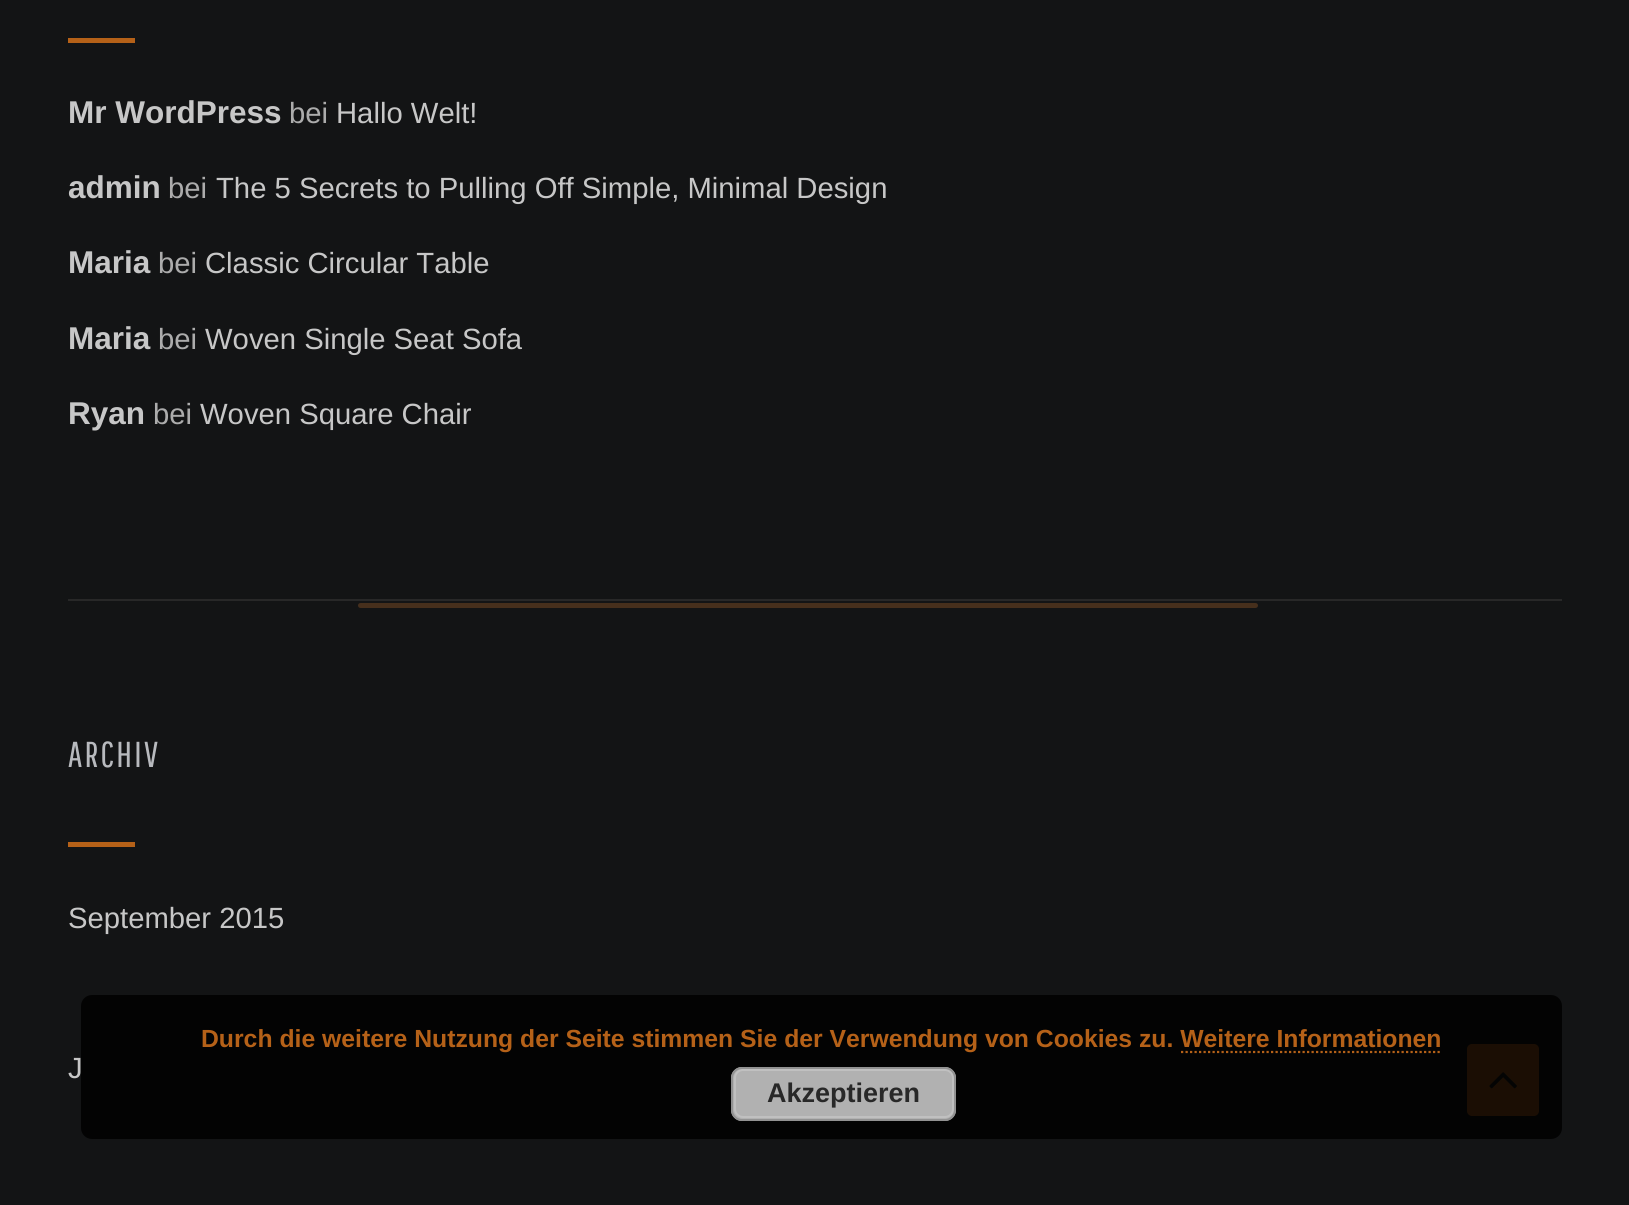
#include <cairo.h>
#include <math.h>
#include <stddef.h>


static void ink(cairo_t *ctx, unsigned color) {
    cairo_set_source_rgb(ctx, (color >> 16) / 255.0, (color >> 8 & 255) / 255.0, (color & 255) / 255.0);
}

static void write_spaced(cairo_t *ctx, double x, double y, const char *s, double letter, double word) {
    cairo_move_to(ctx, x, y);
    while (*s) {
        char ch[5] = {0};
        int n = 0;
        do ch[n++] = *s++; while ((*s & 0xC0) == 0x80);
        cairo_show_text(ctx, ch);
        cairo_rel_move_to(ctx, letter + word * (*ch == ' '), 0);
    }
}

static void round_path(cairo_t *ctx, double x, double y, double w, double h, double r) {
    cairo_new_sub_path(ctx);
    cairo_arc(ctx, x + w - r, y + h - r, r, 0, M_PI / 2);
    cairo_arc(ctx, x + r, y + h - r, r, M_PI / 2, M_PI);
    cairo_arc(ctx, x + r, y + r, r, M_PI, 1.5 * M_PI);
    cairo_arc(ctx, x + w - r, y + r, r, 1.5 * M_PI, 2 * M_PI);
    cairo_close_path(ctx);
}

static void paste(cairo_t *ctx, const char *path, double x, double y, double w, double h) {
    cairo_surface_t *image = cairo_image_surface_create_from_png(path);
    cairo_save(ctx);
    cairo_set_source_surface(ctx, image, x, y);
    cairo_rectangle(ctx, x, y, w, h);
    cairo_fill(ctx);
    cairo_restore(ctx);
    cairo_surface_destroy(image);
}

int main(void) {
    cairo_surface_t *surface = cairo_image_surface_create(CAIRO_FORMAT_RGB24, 1629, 1205);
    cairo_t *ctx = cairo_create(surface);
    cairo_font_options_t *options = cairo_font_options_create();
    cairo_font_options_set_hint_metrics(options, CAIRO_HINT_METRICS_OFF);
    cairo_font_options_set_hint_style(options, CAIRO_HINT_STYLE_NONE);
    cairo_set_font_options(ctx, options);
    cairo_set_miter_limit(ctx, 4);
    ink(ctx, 0x131415);
    cairo_paint(ctx);
    ink(ctx, 0x282828);
    cairo_rectangle(ctx, 68, 599, 1494, 2);
    cairo_fill(ctx);
    ink(ctx, 0xB56118);
    cairo_rectangle(ctx, 68, 38, 67, 5);
    cairo_fill(ctx);
    cairo_select_font_face(ctx, "Liberation Sans", CAIRO_FONT_SLANT_NORMAL, CAIRO_FONT_WEIGHT_BOLD);
    cairo_set_font_size(ctx, 31.5);
    ink(ctx, 0xC7C7C7);
    cairo_move_to(ctx, 68, 123);
    cairo_show_text(ctx, "Mr WordPress");
    cairo_select_font_face(ctx, "Liberation Sans", CAIRO_FONT_SLANT_NORMAL, CAIRO_FONT_WEIGHT_NORMAL);
    cairo_set_font_size(ctx, 29.25);
    ink(ctx, 0xACACAC);
    cairo_move_to(ctx, 289, 123);
    cairo_show_text(ctx, "bei");
    ink(ctx, 0xC7C7C7);
    cairo_move_to(ctx, 336, 123);
    cairo_show_text(ctx, "Hallo Welt!");
    cairo_select_font_face(ctx, "Liberation Sans", CAIRO_FONT_SLANT_NORMAL, CAIRO_FONT_WEIGHT_BOLD);
    cairo_set_font_size(ctx, 31.5);
    cairo_move_to(ctx, 68, 198);
    cairo_show_text(ctx, "admin");
    cairo_select_font_face(ctx, "Liberation Sans", CAIRO_FONT_SLANT_NORMAL, CAIRO_FONT_WEIGHT_NORMAL);
    cairo_set_font_size(ctx, 29.25);
    ink(ctx, 0xACACAC);
    cairo_move_to(ctx, 168, 198);
    cairo_show_text(ctx, "bei");
    ink(ctx, 0xC7C7C7);
    cairo_move_to(ctx, 216, 198);
    cairo_show_text(ctx, "The 5 Secrets to Pulling Off Simple, Minimal Design");
    cairo_select_font_face(ctx, "Liberation Sans", CAIRO_FONT_SLANT_NORMAL, CAIRO_FONT_WEIGHT_BOLD);
    cairo_set_font_size(ctx, 31.5);
    cairo_move_to(ctx, 68, 273);
    cairo_show_text(ctx, "Maria");
    cairo_select_font_face(ctx, "Liberation Sans", CAIRO_FONT_SLANT_NORMAL, CAIRO_FONT_WEIGHT_NORMAL);
    cairo_set_font_size(ctx, 29.25);
    ink(ctx, 0xACACAC);
    cairo_move_to(ctx, 158, 273);
    cairo_show_text(ctx, "bei");
    ink(ctx, 0xC7C7C7);
    cairo_move_to(ctx, 205, 273);
    cairo_show_text(ctx, "Classic Circular Table");
    cairo_select_font_face(ctx, "Liberation Sans", CAIRO_FONT_SLANT_NORMAL, CAIRO_FONT_WEIGHT_BOLD);
    cairo_set_font_size(ctx, 31.5);
    cairo_move_to(ctx, 68, 349);
    cairo_show_text(ctx, "Maria");
    cairo_select_font_face(ctx, "Liberation Sans", CAIRO_FONT_SLANT_NORMAL, CAIRO_FONT_WEIGHT_NORMAL);
    cairo_set_font_size(ctx, 29.25);
    ink(ctx, 0xACACAC);
    cairo_move_to(ctx, 158, 349);
    cairo_show_text(ctx, "bei");
    ink(ctx, 0xC7C7C7);
    cairo_move_to(ctx, 205, 349);
    cairo_show_text(ctx, "Woven Single Seat Sofa");
    cairo_select_font_face(ctx, "Liberation Sans", CAIRO_FONT_SLANT_NORMAL, CAIRO_FONT_WEIGHT_BOLD);
    cairo_set_font_size(ctx, 31.5);
    cairo_move_to(ctx, 68, 424);
    cairo_show_text(ctx, "Ryan");
    cairo_select_font_face(ctx, "Liberation Sans", CAIRO_FONT_SLANT_NORMAL, CAIRO_FONT_WEIGHT_NORMAL);
    cairo_set_font_size(ctx, 29.25);
    ink(ctx, 0xACACAC);
    cairo_move_to(ctx, 153, 424);
    cairo_show_text(ctx, "bei");
    ink(ctx, 0xC7C7C7);
    cairo_move_to(ctx, 200, 424);
    cairo_show_text(ctx, "Woven Square Chair");
    cairo_select_font_face(ctx, "Pathway Gothic One", CAIRO_FONT_SLANT_NORMAL, CAIRO_FONT_WEIGHT_NORMAL);
    cairo_set_font_size(ctx, 36);
    ink(ctx, 0xB8BABE);
    write_spaced(ctx, 68, 767, "ARCHIV", 2.25, 0);
    ink(ctx, 0xB56118);
    cairo_rectangle(ctx, 68, 842, 67, 5);
    cairo_fill(ctx);
    cairo_select_font_face(ctx, "Liberation Sans", CAIRO_FONT_SLANT_NORMAL, CAIRO_FONT_WEIGHT_NORMAL);
    cairo_set_font_size(ctx, 29.25);
    ink(ctx, 0xC7C7C7);
    cairo_move_to(ctx, 68, 928);
    cairo_show_text(ctx, "September 2015");
    cairo_move_to(ctx, 68, 1078);
    cairo_show_text(ctx, "J");
    ink(ctx, 0xB56118);
    round_path(ctx, 1467, 1044, 72, 72, 5);
    cairo_fill(ctx);
    paste(ctx, "media/1.png", 1489, 1072, 28, 17);
    ink(ctx, 0x462F1C);
    round_path(ctx, 358, 603, 900, 5, 2.5);
    cairo_fill(ctx);
    cairo_set_source_rgba(ctx, 0, 0, 0, 0.85);
    round_path(ctx, 81, 995, 1481, 144, 11);
    cairo_fill(ctx);
    cairo_select_font_face(ctx, "Liberation Sans", CAIRO_FONT_SLANT_NORMAL, CAIRO_FONT_WEIGHT_BOLD);
    cairo_set_font_size(ctx, 24.75);
    ink(ctx, 0xB56118);
    cairo_move_to(ctx, 201, 1047);
    cairo_show_text(ctx, "Durch die weitere Nutzung der Seite stimmen Sie der Verwendung von Cookies zu. Weitere Informationen");
    cairo_new_path(ctx);
    cairo_move_to(ctx, 1181, 1052);
    cairo_line_to(ctx, 1442, 1052);
    cairo_set_line_width(ctx, 2.2);
    cairo_set_dash(ctx, (double[]){2.25, 2.25}, 2, 0);
    cairo_stroke(ctx);
    ink(ctx, 0xB1B1B1);
    round_path(ctx, 731, 1067, 225, 54, 11);
    cairo_fill(ctx);
    round_path(ctx, 735, 1070, 218, 47, 8);
    ink(ctx, 0xC0C0C0);
    cairo_set_line_width(ctx, 2);
    cairo_set_dash(ctx, NULL, 0, 0);
    cairo_stroke(ctx);
    round_path(ctx, 732, 1068, 223, 52, 10);
    ink(ctx, 0x929292);
    cairo_stroke(ctx);
    cairo_set_font_size(ctx, 27);
    ink(ctx, 0x282828);
    cairo_move_to(ctx, 767, 1102);
    cairo_show_text(ctx, "Akzeptieren");
    cairo_surface_write_to_png(surface, "image.png");
    cairo_font_options_destroy(options);
    cairo_destroy(ctx);
    cairo_surface_destroy(surface);
    return 0;
}
